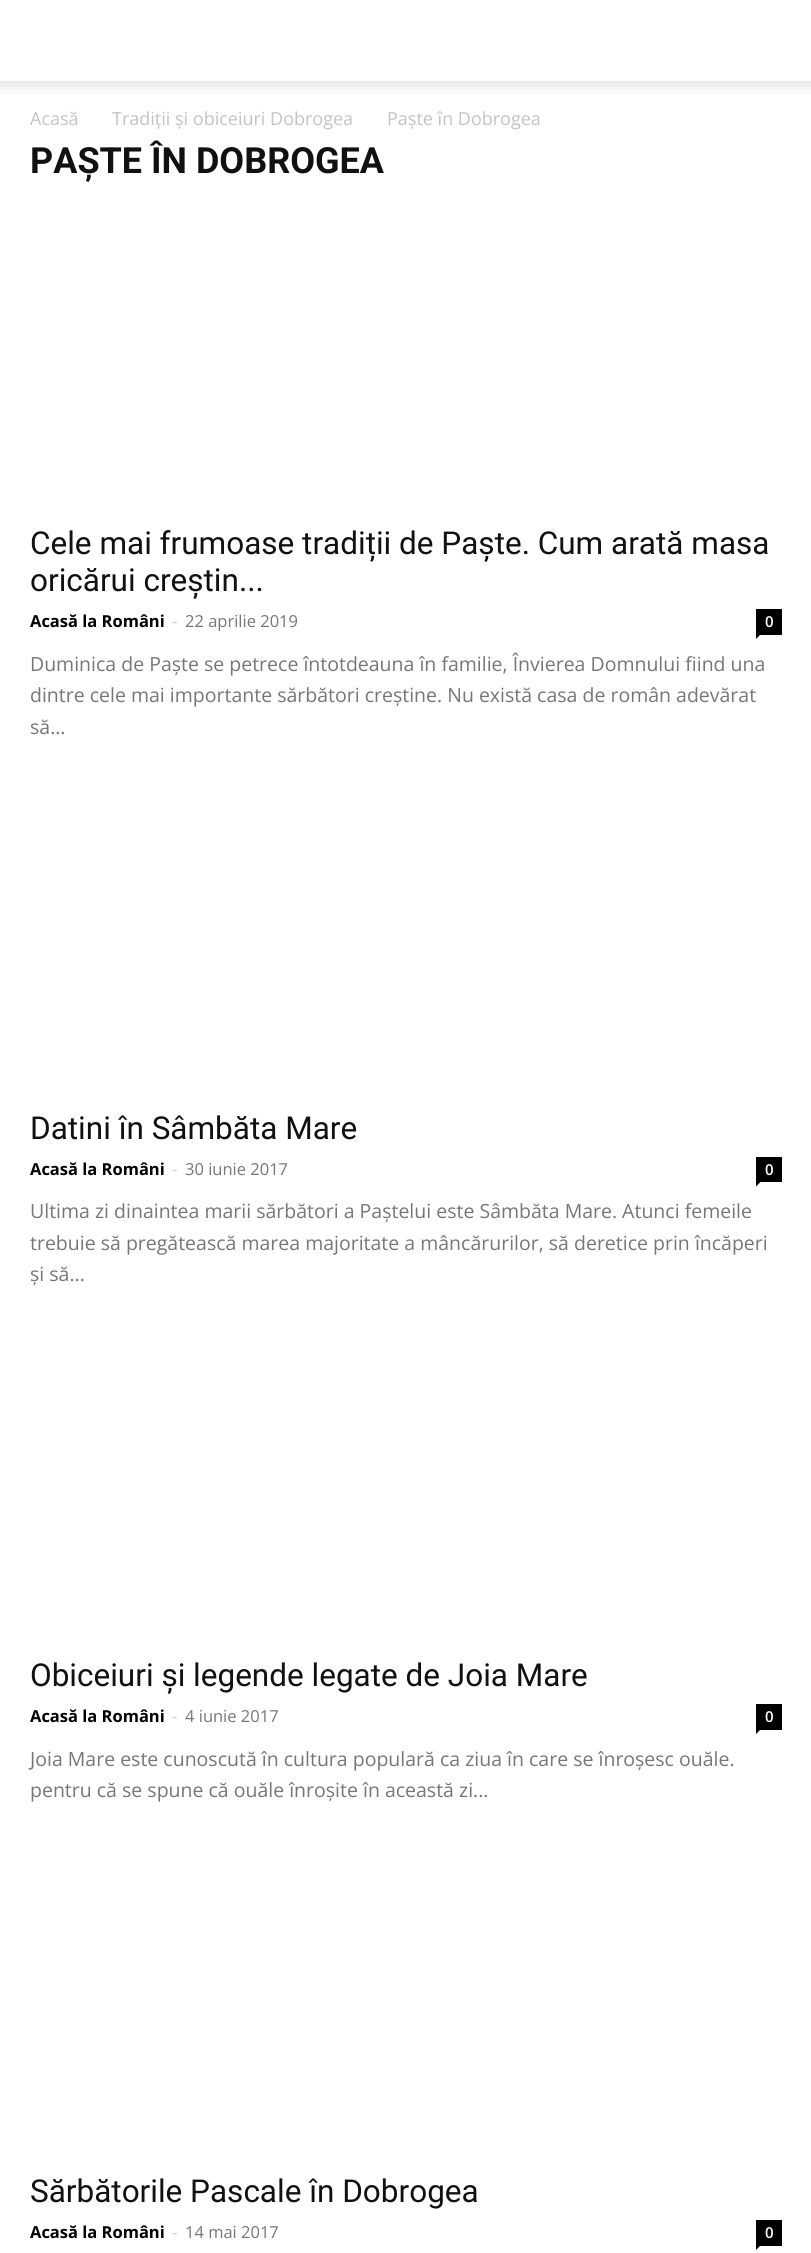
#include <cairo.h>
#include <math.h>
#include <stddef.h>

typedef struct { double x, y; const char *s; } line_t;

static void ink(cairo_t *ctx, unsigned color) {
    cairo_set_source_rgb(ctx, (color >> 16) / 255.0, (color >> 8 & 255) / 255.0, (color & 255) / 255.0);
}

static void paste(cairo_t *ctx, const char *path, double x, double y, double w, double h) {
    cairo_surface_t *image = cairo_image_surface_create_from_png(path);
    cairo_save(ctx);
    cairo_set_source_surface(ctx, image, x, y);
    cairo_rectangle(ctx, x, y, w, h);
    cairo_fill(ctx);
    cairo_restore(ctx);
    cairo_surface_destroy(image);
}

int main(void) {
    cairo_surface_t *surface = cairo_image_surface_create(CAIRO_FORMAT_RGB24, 811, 2253);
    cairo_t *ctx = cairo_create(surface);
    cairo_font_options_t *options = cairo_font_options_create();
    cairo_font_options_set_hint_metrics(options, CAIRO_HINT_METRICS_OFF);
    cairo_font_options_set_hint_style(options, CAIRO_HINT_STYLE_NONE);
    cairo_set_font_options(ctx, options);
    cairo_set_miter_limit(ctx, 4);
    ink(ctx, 0xFFFFFF);
    cairo_paint(ctx);
    paste(ctx, "media/1.png", 0, 81, 811, 13);
    cairo_select_font_face(ctx, "Open Sans", CAIRO_FONT_SLANT_NORMAL, CAIRO_FONT_WEIGHT_NORMAL);
    cairo_set_font_size(ctx, 18);
    ink(ctx, 0xC3C3C3);
    {
        static const line_t items[] = {
            {30, 125, "Acasă"},
            {112, 125, "Tradiții și obiceiuri Dobrogea"},
            {387, 125, "Paște în Dobrogea"},
        };
        for (size_t i = 0; i < sizeof items / sizeof *items; i++) {
            cairo_move_to(ctx, items[i].x, items[i].y);
            cairo_show_text(ctx, items[i].s);
        }
    }
    cairo_select_font_face(ctx, "Roboto", CAIRO_FONT_SLANT_NORMAL, CAIRO_FONT_WEIGHT_BOLD);
    cairo_set_font_size(ctx, 36);
    ink(ctx, 0x111111);
    cairo_move_to(ctx, 30, 173);
    cairo_show_text(ctx, "PAȘTE ÎN DOBROGEA");
    cairo_select_font_face(ctx, "Roboto", CAIRO_FONT_SLANT_NORMAL, CAIRO_FONT_WEIGHT_NORMAL);
    cairo_set_font_size(ctx, 31.5);
    cairo_move_to(ctx, 30, 554);
    cairo_show_text(ctx, "Cele mai frumoase tradiții de Paște. Cum arată masa");
    cairo_move_to(ctx, 30, 591);
    cairo_show_text(ctx, "oricărui creștin...");
    cairo_select_font_face(ctx, "Open Sans", CAIRO_FONT_SLANT_NORMAL, CAIRO_FONT_WEIGHT_BOLD);
    cairo_set_font_size(ctx, 16.5);
    ink(ctx, 0x000000);
    cairo_move_to(ctx, 30, 627);
    cairo_show_text(ctx, "Acasă la Români");
    cairo_select_font_face(ctx, "Open Sans", CAIRO_FONT_SLANT_NORMAL, CAIRO_FONT_WEIGHT_NORMAL);
    ink(ctx, 0xCCCCCC);
    cairo_move_to(ctx, 172, 627);
    cairo_show_text(ctx, "-");
    ink(ctx, 0x767676);
    cairo_move_to(ctx, 185, 627);
    cairo_show_text(ctx, "22 aprilie 2019");
    ink(ctx, 0x000000);
    cairo_rectangle(ctx, 756, 609, 26, 26);
    cairo_fill(ctx);
    cairo_select_font_face(ctx, "Open Sans SemiBold", CAIRO_FONT_SLANT_NORMAL, CAIRO_FONT_WEIGHT_NORMAL);
    cairo_set_font_size(ctx, 15);
    ink(ctx, 0xFFFFFF);
    cairo_move_to(ctx, 765, 627);
    cairo_show_text(ctx, "0");
    ink(ctx, 0x000000);
    cairo_new_path(ctx);
    cairo_move_to(ctx, 756, 634.5);
    cairo_line_to(ctx, 760.5, 634.5);
    cairo_line_to(ctx, 756, 639);
    cairo_close_path(ctx);
    cairo_fill(ctx);
    cairo_select_font_face(ctx, "Open Sans", CAIRO_FONT_SLANT_NORMAL, CAIRO_FONT_WEIGHT_NORMAL);
    cairo_set_font_size(ctx, 19.5);
    ink(ctx, 0x767676);
    {
        static const line_t items[] = {
            {30, 671, "Duminica de Paște se petrece întotdeauna în familie, Învierea Domnului fiind una"},
            {30, 702, "dintre cele mai importante sărbători creștine. Nu există casa de român adevărat"},
            {30, 734, "să..."},
        };
        for (size_t i = 0; i < sizeof items / sizeof *items; i++) {
            cairo_move_to(ctx, items[i].x, items[i].y);
            cairo_show_text(ctx, items[i].s);
        }
    }
    cairo_select_font_face(ctx, "Roboto", CAIRO_FONT_SLANT_NORMAL, CAIRO_FONT_WEIGHT_NORMAL);
    cairo_set_font_size(ctx, 31.5);
    ink(ctx, 0x111111);
    cairo_move_to(ctx, 30, 1139);
    cairo_show_text(ctx, "Datini în Sâmbăta Mare");
    cairo_select_font_face(ctx, "Open Sans", CAIRO_FONT_SLANT_NORMAL, CAIRO_FONT_WEIGHT_BOLD);
    cairo_set_font_size(ctx, 16.5);
    ink(ctx, 0x000000);
    cairo_move_to(ctx, 30, 1175);
    cairo_show_text(ctx, "Acasă la Români");
    cairo_select_font_face(ctx, "Open Sans", CAIRO_FONT_SLANT_NORMAL, CAIRO_FONT_WEIGHT_NORMAL);
    ink(ctx, 0xCCCCCC);
    cairo_move_to(ctx, 172, 1175);
    cairo_show_text(ctx, "-");
    ink(ctx, 0x767676);
    cairo_move_to(ctx, 185, 1175);
    cairo_show_text(ctx, "30 iunie 2017");
    ink(ctx, 0x000000);
    cairo_rectangle(ctx, 756, 1157, 26, 25);
    cairo_fill(ctx);
    cairo_select_font_face(ctx, "Open Sans SemiBold", CAIRO_FONT_SLANT_NORMAL, CAIRO_FONT_WEIGHT_NORMAL);
    cairo_set_font_size(ctx, 15);
    ink(ctx, 0xFFFFFF);
    cairo_move_to(ctx, 765, 1175);
    cairo_show_text(ctx, "0");
    ink(ctx, 0x000000);
    cairo_new_path(ctx);
    cairo_move_to(ctx, 756, 1182);
    cairo_line_to(ctx, 760.5, 1182);
    cairo_line_to(ctx, 756, 1186.5);
    cairo_close_path(ctx);
    cairo_fill(ctx);
    cairo_select_font_face(ctx, "Open Sans", CAIRO_FONT_SLANT_NORMAL, CAIRO_FONT_WEIGHT_NORMAL);
    cairo_set_font_size(ctx, 19.5);
    ink(ctx, 0x767676);
    {
        static const line_t items[] = {
            {30, 1218, "Ultima zi dinaintea marii sărbători a Paștelui este Sâmbăta Mare. Atunci femeile"},
            {30, 1250, "trebuie să pregătească marea majoritate a mâncărurilor, să deretice prin încăperi"},
            {30, 1281, "și să..."},
        };
        for (size_t i = 0; i < sizeof items / sizeof *items; i++) {
            cairo_move_to(ctx, items[i].x, items[i].y);
            cairo_show_text(ctx, items[i].s);
        }
    }
    cairo_select_font_face(ctx, "Roboto", CAIRO_FONT_SLANT_NORMAL, CAIRO_FONT_WEIGHT_NORMAL);
    cairo_set_font_size(ctx, 31.5);
    ink(ctx, 0x111111);
    cairo_move_to(ctx, 30, 1686);
    cairo_show_text(ctx, "Obiceiuri și legende legate de Joia Mare");
    cairo_select_font_face(ctx, "Open Sans", CAIRO_FONT_SLANT_NORMAL, CAIRO_FONT_WEIGHT_BOLD);
    cairo_set_font_size(ctx, 16.5);
    ink(ctx, 0x000000);
    cairo_move_to(ctx, 30, 1722);
    cairo_show_text(ctx, "Acasă la Români");
    cairo_select_font_face(ctx, "Open Sans", CAIRO_FONT_SLANT_NORMAL, CAIRO_FONT_WEIGHT_NORMAL);
    ink(ctx, 0xCCCCCC);
    cairo_move_to(ctx, 172, 1722);
    cairo_show_text(ctx, "-");
    ink(ctx, 0x767676);
    cairo_move_to(ctx, 185, 1722);
    cairo_show_text(ctx, "4 iunie 2017");
    ink(ctx, 0x000000);
    cairo_rectangle(ctx, 756, 1704, 26, 26);
    cairo_fill(ctx);
    cairo_select_font_face(ctx, "Open Sans SemiBold", CAIRO_FONT_SLANT_NORMAL, CAIRO_FONT_WEIGHT_NORMAL);
    cairo_set_font_size(ctx, 15);
    ink(ctx, 0xFFFFFF);
    cairo_move_to(ctx, 765, 1722);
    cairo_show_text(ctx, "0");
    ink(ctx, 0x000000);
    cairo_new_path(ctx);
    cairo_move_to(ctx, 756, 1729.5);
    cairo_line_to(ctx, 760.5, 1729.5);
    cairo_line_to(ctx, 756, 1734);
    cairo_close_path(ctx);
    cairo_fill(ctx);
    cairo_select_font_face(ctx, "Open Sans", CAIRO_FONT_SLANT_NORMAL, CAIRO_FONT_WEIGHT_NORMAL);
    cairo_set_font_size(ctx, 19.5);
    ink(ctx, 0x767676);
    cairo_move_to(ctx, 30, 1766);
    cairo_show_text(ctx, "Joia Mare este cunoscută în cultura populară ca ziua în care se înroșesc ouăle.");
    cairo_move_to(ctx, 30, 1797);
    cairo_show_text(ctx, "pentru că se spune că ouăle înroșite în această zi...");
    cairo_select_font_face(ctx, "Roboto", CAIRO_FONT_SLANT_NORMAL, CAIRO_FONT_WEIGHT_NORMAL);
    cairo_set_font_size(ctx, 31.5);
    ink(ctx, 0x111111);
    cairo_move_to(ctx, 30, 2202);
    cairo_show_text(ctx, "Sărbătorile Pascale în Dobrogea");
    cairo_select_font_face(ctx, "Open Sans", CAIRO_FONT_SLANT_NORMAL, CAIRO_FONT_WEIGHT_BOLD);
    cairo_set_font_size(ctx, 16.5);
    ink(ctx, 0x000000);
    cairo_move_to(ctx, 30, 2238);
    cairo_show_text(ctx, "Acasă la Români");
    cairo_select_font_face(ctx, "Open Sans", CAIRO_FONT_SLANT_NORMAL, CAIRO_FONT_WEIGHT_NORMAL);
    ink(ctx, 0xCCCCCC);
    cairo_move_to(ctx, 172, 2238);
    cairo_show_text(ctx, "-");
    ink(ctx, 0x767676);
    cairo_move_to(ctx, 185, 2238);
    cairo_show_text(ctx, "14 mai 2017");
    ink(ctx, 0x000000);
    cairo_rectangle(ctx, 756, 2220, 26, 26);
    cairo_fill(ctx);
    cairo_select_font_face(ctx, "Open Sans SemiBold", CAIRO_FONT_SLANT_NORMAL, CAIRO_FONT_WEIGHT_NORMAL);
    cairo_set_font_size(ctx, 15);
    ink(ctx, 0xFFFFFF);
    cairo_move_to(ctx, 765, 2238);
    cairo_show_text(ctx, "0");
    ink(ctx, 0x000000);
    cairo_new_path(ctx);
    cairo_move_to(ctx, 756, 2245.5);
    cairo_line_to(ctx, 760.5, 2245.5);
    cairo_line_to(ctx, 756, 2250);
    cairo_close_path(ctx);
    cairo_fill(ctx);
    cairo_surface_write_to_png(surface, "image.png");
    cairo_font_options_destroy(options);
    cairo_destroy(ctx);
    cairo_surface_destroy(surface);
    return 0;
}
